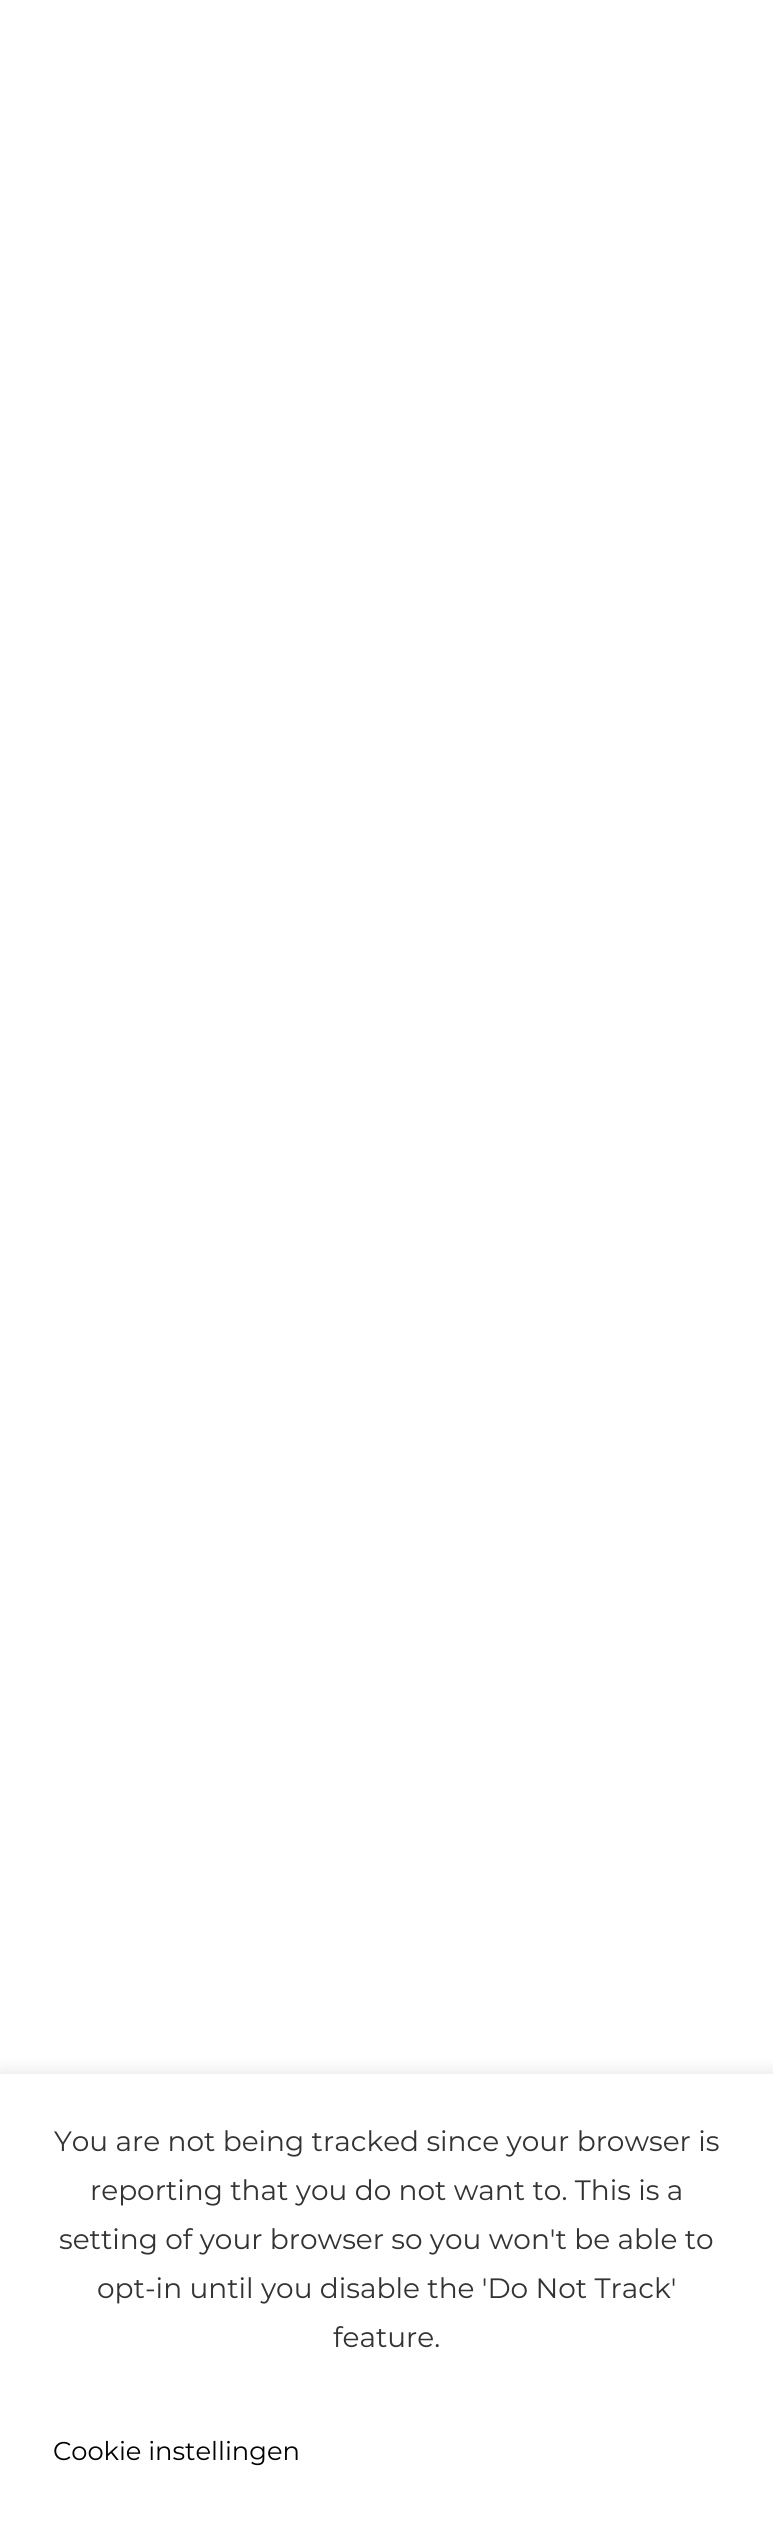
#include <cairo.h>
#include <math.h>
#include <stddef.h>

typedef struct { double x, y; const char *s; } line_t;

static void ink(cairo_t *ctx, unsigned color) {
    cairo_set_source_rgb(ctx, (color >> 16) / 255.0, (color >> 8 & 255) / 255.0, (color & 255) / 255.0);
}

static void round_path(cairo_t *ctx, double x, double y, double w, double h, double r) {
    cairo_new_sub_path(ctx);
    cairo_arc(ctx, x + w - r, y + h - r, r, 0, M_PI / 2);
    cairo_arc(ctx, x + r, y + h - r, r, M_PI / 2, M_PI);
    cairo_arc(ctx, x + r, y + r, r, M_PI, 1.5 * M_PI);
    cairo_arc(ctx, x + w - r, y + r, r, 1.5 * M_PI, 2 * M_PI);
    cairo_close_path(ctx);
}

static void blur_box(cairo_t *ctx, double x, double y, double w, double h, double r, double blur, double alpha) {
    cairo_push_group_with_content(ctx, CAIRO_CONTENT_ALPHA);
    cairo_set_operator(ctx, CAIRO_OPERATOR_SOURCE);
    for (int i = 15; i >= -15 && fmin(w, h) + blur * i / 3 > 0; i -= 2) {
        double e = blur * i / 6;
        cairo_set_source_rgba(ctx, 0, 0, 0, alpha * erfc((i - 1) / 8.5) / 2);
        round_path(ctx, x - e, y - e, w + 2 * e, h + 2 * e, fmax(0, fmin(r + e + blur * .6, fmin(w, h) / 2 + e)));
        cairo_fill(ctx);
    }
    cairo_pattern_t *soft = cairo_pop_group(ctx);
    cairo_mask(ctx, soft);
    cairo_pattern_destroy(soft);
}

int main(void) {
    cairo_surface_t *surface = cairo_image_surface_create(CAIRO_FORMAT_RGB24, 773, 2529);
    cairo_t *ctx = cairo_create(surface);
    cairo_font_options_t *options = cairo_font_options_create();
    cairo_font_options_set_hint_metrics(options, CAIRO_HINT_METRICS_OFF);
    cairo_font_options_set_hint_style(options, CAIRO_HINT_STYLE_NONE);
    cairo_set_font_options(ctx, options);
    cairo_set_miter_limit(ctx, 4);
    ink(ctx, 0xFFFFFF);
    cairo_paint(ctx);
    cairo_save(ctx);
    cairo_rectangle(ctx, 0, 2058, 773, 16);
    cairo_clip(ctx);
    ink(ctx, 0xACABAB);
    blur_box(ctx, 0, 2072, 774, 457, 0, 9, 0.3);
    cairo_restore(ctx);
    cairo_select_font_face(ctx, "Montserrat", CAIRO_FONT_SLANT_NORMAL, CAIRO_FONT_WEIGHT_NORMAL);
    cairo_set_font_size(ctx, 28);
    ink(ctx, 0x333333);
    {
        static const line_t items[] = {
            {54, 2151, "You are not being tracked since your browser is"},
            {90, 2200, "reporting that you do not want to. This is a"},
            {59, 2249, "setting of your browser so you won't be able to"},
            {97, 2298, "opt-in until you disable the 'Do Not Track'"},
            {333, 2347, "feature."},
        };
        for (size_t i = 0; i < sizeof items / sizeof *items; i++) {
            cairo_move_to(ctx, items[i].x, items[i].y);
            cairo_show_text(ctx, items[i].s);
        }
    }
    cairo_set_font_size(ctx, 25.75);
    ink(ctx, 0x000000);
    cairo_move_to(ctx, 53, 2460);
    cairo_show_text(ctx, "Cookie instellingen");
    cairo_surface_write_to_png(surface, "image.png");
    cairo_font_options_destroy(options);
    cairo_destroy(ctx);
    cairo_surface_destroy(surface);
    return 0;
}
